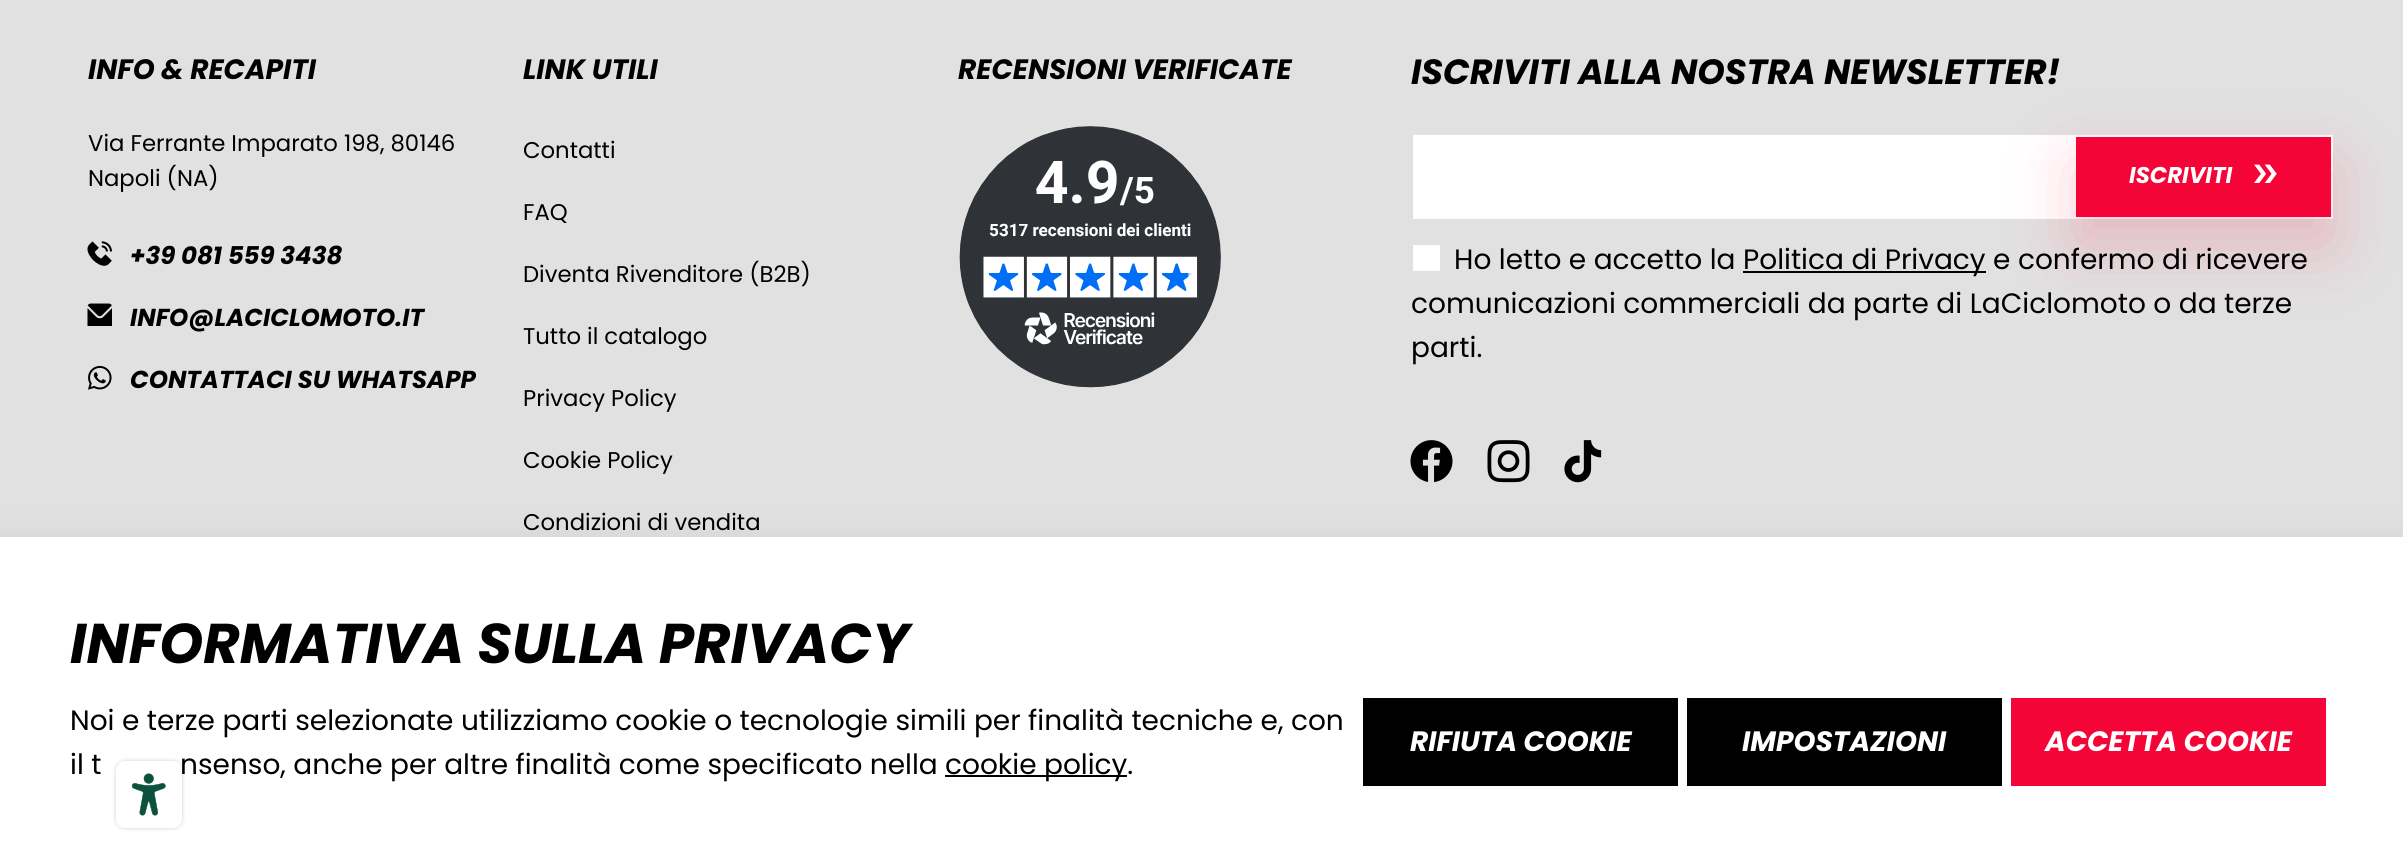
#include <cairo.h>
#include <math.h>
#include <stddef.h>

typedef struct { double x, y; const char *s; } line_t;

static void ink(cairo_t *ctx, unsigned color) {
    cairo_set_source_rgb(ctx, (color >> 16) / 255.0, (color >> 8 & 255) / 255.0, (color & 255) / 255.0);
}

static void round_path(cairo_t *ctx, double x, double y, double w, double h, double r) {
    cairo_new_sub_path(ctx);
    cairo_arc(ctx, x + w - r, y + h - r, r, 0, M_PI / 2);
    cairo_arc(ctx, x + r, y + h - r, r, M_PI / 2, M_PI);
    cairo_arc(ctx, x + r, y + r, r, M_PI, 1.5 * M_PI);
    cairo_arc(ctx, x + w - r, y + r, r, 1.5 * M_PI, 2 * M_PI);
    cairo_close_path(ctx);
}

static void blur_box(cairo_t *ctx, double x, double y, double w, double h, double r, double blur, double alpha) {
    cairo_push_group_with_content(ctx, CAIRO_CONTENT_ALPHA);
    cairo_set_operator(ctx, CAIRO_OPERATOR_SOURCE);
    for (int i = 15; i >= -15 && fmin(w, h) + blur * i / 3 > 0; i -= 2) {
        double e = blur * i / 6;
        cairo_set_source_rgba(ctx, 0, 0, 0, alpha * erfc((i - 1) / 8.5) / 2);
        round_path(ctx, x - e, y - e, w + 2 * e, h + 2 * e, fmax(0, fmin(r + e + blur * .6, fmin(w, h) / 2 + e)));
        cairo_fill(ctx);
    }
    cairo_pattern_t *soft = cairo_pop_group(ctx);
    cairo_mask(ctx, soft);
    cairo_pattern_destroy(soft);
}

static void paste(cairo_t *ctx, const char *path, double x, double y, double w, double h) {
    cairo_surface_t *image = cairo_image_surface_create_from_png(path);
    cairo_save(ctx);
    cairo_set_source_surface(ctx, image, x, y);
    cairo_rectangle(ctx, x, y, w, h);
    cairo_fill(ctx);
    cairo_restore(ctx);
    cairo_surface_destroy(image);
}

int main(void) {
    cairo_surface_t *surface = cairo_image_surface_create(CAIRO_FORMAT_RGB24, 2403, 855);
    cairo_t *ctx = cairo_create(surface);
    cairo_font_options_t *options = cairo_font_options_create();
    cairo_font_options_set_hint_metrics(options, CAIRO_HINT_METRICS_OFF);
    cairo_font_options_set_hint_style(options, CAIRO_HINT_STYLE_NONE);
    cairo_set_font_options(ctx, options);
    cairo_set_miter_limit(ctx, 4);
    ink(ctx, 0xE1E1E1);
    cairo_paint(ctx);
    cairo_select_font_face(ctx, "Poppins", CAIRO_FONT_SLANT_ITALIC, CAIRO_FONT_WEIGHT_BOLD);
    cairo_set_font_size(ctx, 28);
    ink(ctx, 0x000000);
    cairo_move_to(ctx, 88, 79);
    cairo_show_text(ctx, "INFO & RECAPITI");
    cairo_select_font_face(ctx, "Poppins", CAIRO_FONT_SLANT_NORMAL, CAIRO_FONT_WEIGHT_NORMAL);
    cairo_set_font_size(ctx, 22.75);
    cairo_move_to(ctx, 88, 151);
    cairo_show_text(ctx, "Via Ferrante Imparato 198, 80146");
    cairo_move_to(ctx, 88, 186);
    cairo_show_text(ctx, "Napoli (NA)");
    paste(ctx, "media/1.png", 87, 241, 25, 25);
    cairo_select_font_face(ctx, "Poppins", CAIRO_FONT_SLANT_ITALIC, CAIRO_FONT_WEIGHT_BOLD);
    cairo_set_font_size(ctx, 24.5);
    cairo_move_to(ctx, 130, 264);
    cairo_show_text(ctx, "+39 081 559 3438");
    paste(ctx, "media/2.png", 87, 303, 25, 23);
    cairo_move_to(ctx, 130, 326);
    cairo_show_text(ctx, "INFO@LACICLOMOTO.IT");
    paste(ctx, "media/3.png", 88, 365, 24, 25);
    cairo_move_to(ctx, 130, 388);
    cairo_show_text(ctx, "CONTATTACI SU WHATSAPP");
    cairo_set_font_size(ctx, 28);
    cairo_move_to(ctx, 523, 79);
    cairo_show_text(ctx, "LINK UTILI");
    cairo_select_font_face(ctx, "Poppins", CAIRO_FONT_SLANT_NORMAL, CAIRO_FONT_WEIGHT_NORMAL);
    cairo_set_font_size(ctx, 22.75);
    {
        static const line_t items[] = {
            {523, 158, "Contatti"},
            {523, 220, "FAQ"},
            {523, 282, "Diventa Rivenditore (B2B)"},
            {523, 344, "Tutto il catalogo"},
            {523, 406, "Privacy Policy"},
            {523, 468, "Cookie Policy"},
            {523, 530, "Condizioni di vendita"},
        };
        for (size_t i = 0; i < sizeof items / sizeof *items; i++) {
            cairo_move_to(ctx, items[i].x, items[i].y);
            cairo_show_text(ctx, items[i].s);
        }
    }
    cairo_select_font_face(ctx, "Poppins", CAIRO_FONT_SLANT_ITALIC, CAIRO_FONT_WEIGHT_BOLD);
    cairo_set_font_size(ctx, 28);
    cairo_move_to(ctx, 958, 79);
    cairo_show_text(ctx, "RECENSIONI VERIFICATE");
    paste(ctx, "media/4.png", 959, 126, 262, 262);
    cairo_set_font_size(ctx, 35);
    cairo_move_to(ctx, 1411, 84);
    cairo_show_text(ctx, "ISCRIVITI ALLA NOSTRA NEWSLETTER!");
    ink(ctx, 0xFFFFFF);
    cairo_rectangle(ctx, 1413, 135, 920, 84);
    cairo_fill(ctx);
    ink(ctx, 0x000000);
    cairo_rectangle(ctx, 1743, 271, 243, 2);
    cairo_fill(ctx);
    ink(ctx, 0xF50437);
    blur_box(ctx, 2076, 165, 255, 80, 0, 35, 0.2);
    ink(ctx, 0xF50437);
    cairo_rectangle(ctx, 2076, 137, 255, 80);
    cairo_fill(ctx);
    cairo_set_font_size(ctx, 22.75);
    ink(ctx, 0xFFFFFF);
    cairo_move_to(ctx, 2129, 183);
    cairo_show_text(ctx, "ISCRIVITI");
    paste(ctx, "media/5.png", 2254, 164, 23, 19);
    cairo_rectangle(ctx, 1413, 245, 27, 26);
    cairo_fill(ctx);
    cairo_select_font_face(ctx, "Poppins", CAIRO_FONT_SLANT_NORMAL, CAIRO_FONT_WEIGHT_NORMAL);
    cairo_set_font_size(ctx, 28);
    ink(ctx, 0x000000);
    {
        static const line_t items[] = {
            {1454, 269, "Ho letto e accetto la"},
            {1743, 269, "Politica di Privacy e confermo di ricevere"},
            {1411, 313, "comunicazioni commerciali da parte di LaCiclomoto o da terze"},
            {1411, 357, "parti."},
        };
        for (size_t i = 0; i < sizeof items / sizeof *items; i++) {
            cairo_move_to(ctx, items[i].x, items[i].y);
            cairo_show_text(ctx, items[i].s);
        }
    }
    paste(ctx, "media/6.png", 1410, 440, 43, 43);
    paste(ctx, "media/7.png", 1487, 440, 43, 43);
    paste(ctx, "media/8.png", 1564, 440, 38, 43);
    ink(ctx, 0x000000);
    blur_box(ctx, 0, 534, 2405, 318, 0, 16, 0.06);
    ink(ctx, 0xFFFFFF);
    cairo_rectangle(ctx, 0, 537, 2403, 318);
    cairo_fill(ctx);
    cairo_select_font_face(ctx, "Poppins", CAIRO_FONT_SLANT_ITALIC, CAIRO_FONT_WEIGHT_BOLD);
    cairo_set_font_size(ctx, 56);
    ink(ctx, 0x000000);
    cairo_move_to(ctx, 70, 663);
    cairo_show_text(ctx, "INFORMATIVA SULLA PRIVACY");
    cairo_select_font_face(ctx, "Poppins", CAIRO_FONT_SLANT_NORMAL, CAIRO_FONT_WEIGHT_NORMAL);
    cairo_set_font_size(ctx, 28);
    {
        static const line_t items[] = {
            {70, 730, "Noi e terze parti selezionate utilizziamo cookie o tecnologie simili per finalità tecniche e, con"},
            {70, 774, "il t"},
            {180, 774, "nsenso, anche per altre finalità come specificato nella"},
        };
        for (size_t i = 0; i < sizeof items / sizeof *items; i++) {
            cairo_move_to(ctx, items[i].x, items[i].y);
            cairo_show_text(ctx, items[i].s);
        }
    }
    cairo_rectangle(ctx, 945, 775, 182, 2);
    cairo_fill(ctx);
    cairo_move_to(ctx, 945, 774);
    cairo_show_text(ctx, "cookie policy.");
    cairo_rectangle(ctx, 1363, 698, 315, 88);
    cairo_fill(ctx);
    cairo_select_font_face(ctx, "Poppins", CAIRO_FONT_SLANT_ITALIC, CAIRO_FONT_WEIGHT_BOLD);
    ink(ctx, 0xFFFFFF);
    cairo_move_to(ctx, 1410, 751);
    cairo_show_text(ctx, "RIFIUTA COOKIE");
    ink(ctx, 0x000000);
    cairo_rectangle(ctx, 1687, 698, 315, 88);
    cairo_fill(ctx);
    ink(ctx, 0xFFFFFF);
    cairo_move_to(ctx, 1742, 751);
    cairo_show_text(ctx, "IMPOSTAZIONI");
    ink(ctx, 0xF50437);
    cairo_rectangle(ctx, 2011, 698, 315, 88);
    cairo_fill(ctx);
    ink(ctx, 0xFFFFFF);
    cairo_move_to(ctx, 2045, 751);
    cairo_show_text(ctx, "ACCETTA COOKIE");
    ink(ctx, 0x000000);
    blur_box(ctx, 116, 761, 66, 67, 9, 2, 0.2);
    ink(ctx, 0xFFFFFF);
    round_path(ctx, 116, 761, 66, 67, 9);
    cairo_fill(ctx);
    paste(ctx, "media/9.png", 131, 773, 35, 43);
    cairo_surface_write_to_png(surface, "image.png");
    cairo_font_options_destroy(options);
    cairo_destroy(ctx);
    cairo_surface_destroy(surface);
    return 0;
}
